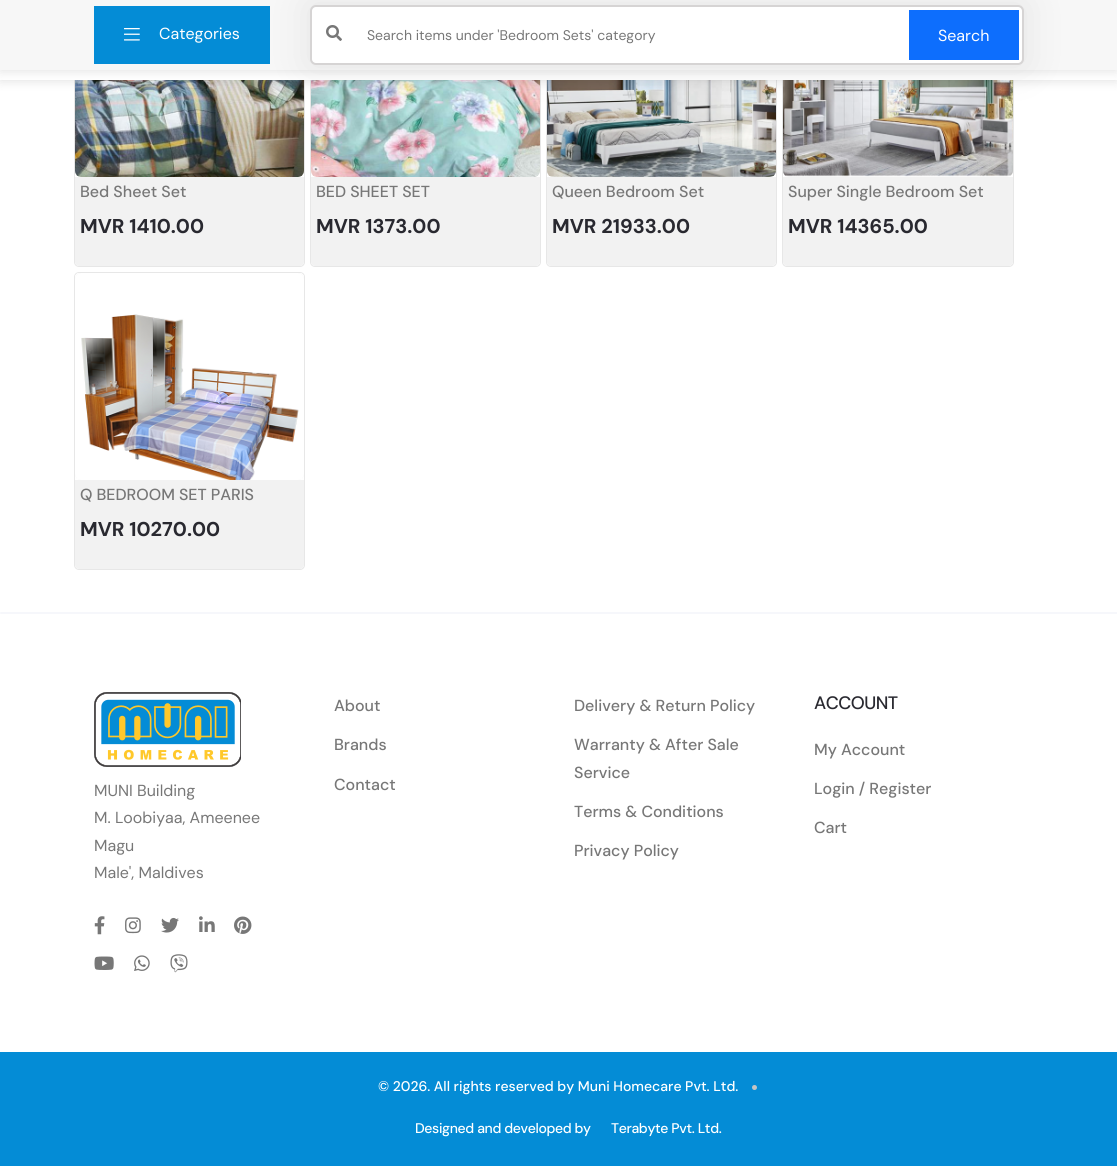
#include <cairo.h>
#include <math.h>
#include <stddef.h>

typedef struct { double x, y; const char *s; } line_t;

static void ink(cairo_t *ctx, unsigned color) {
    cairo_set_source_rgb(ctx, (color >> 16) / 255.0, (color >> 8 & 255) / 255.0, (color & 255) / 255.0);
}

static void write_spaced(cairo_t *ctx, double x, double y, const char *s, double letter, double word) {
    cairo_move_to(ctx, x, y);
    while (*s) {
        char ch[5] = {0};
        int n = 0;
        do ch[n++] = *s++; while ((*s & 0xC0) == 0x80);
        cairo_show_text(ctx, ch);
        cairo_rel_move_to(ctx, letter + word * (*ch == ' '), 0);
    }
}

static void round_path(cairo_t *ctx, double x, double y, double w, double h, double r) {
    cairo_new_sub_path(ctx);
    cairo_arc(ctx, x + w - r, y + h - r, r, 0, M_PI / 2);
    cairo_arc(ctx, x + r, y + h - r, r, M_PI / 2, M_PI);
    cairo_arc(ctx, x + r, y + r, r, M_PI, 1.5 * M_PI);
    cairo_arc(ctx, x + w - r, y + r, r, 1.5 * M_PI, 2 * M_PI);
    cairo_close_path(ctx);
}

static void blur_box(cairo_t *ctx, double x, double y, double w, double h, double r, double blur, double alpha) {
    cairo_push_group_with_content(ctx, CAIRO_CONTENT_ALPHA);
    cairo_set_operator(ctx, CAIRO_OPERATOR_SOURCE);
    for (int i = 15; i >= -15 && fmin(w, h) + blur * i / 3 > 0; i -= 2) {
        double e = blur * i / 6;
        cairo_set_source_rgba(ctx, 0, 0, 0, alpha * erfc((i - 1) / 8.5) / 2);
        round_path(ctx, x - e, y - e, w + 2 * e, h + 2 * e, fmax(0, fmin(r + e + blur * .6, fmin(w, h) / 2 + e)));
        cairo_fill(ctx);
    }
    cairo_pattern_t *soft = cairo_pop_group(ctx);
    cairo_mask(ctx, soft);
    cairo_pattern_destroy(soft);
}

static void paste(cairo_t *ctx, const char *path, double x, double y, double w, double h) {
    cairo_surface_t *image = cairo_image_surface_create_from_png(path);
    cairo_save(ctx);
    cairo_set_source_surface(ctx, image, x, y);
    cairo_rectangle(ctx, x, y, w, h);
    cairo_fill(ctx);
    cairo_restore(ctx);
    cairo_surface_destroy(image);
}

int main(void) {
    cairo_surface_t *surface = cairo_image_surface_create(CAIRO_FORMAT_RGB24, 1117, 1166);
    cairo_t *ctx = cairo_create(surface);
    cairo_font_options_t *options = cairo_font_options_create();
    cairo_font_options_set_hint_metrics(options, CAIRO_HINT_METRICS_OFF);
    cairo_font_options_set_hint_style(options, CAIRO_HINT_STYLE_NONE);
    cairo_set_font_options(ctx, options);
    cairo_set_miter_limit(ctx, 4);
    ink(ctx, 0xFFFFFF);
    cairo_paint(ctx);
    round_path(ctx, 74.5, -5.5, 230, 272, 4.5);
    ink(ctx, 0xE7E7E7);
    cairo_set_line_width(ctx, 1);
    cairo_stroke(ctx);
    paste(ctx, "media/3.png", 75, 80, 229, 97);
    round_path(ctx, 310.5, -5.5, 230, 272, 4.5);
    cairo_stroke(ctx);
    paste(ctx, "media/4.png", 311, 80, 229, 97);
    round_path(ctx, 546.5, -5.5, 230, 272, 4.5);
    cairo_stroke(ctx);
    paste(ctx, "media/5.png", 547, 80, 229, 97);
    round_path(ctx, 782.5, -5.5, 231, 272, 4.5);
    cairo_stroke(ctx);
    paste(ctx, "media/6.png", 783, 80, 230, 97);
    ink(ctx, 0x000000);
    blur_box(ctx, 0, 2, 1117, 80, 0, 5, 0.1);
    ink(ctx, 0xFFFFFF);
    cairo_rectangle(ctx, 0, 70, 1117, 10);
    cairo_fill(ctx);
    ink(ctx, 0x000000);
    blur_box(ctx, 0, 2, 1117, 70, 0, 5, 0.1);
    ink(ctx, 0xF7F7F7);
    cairo_rectangle(ctx, 0, 0, 1117, 70);
    cairo_fill(ctx);
    ink(ctx, 0x048CD6);
    cairo_rectangle(ctx, 94, 6, 176, 58);
    cairo_fill(ctx);
    paste(ctx, "media/1.png", 124, 28, 16, 13);
    cairo_select_font_face(ctx, "DM Sans", CAIRO_FONT_SLANT_NORMAL, CAIRO_FONT_WEIGHT_NORMAL);
    cairo_set_font_size(ctx, 16);
    ink(ctx, 0xFFFFFF);
    cairo_move_to(ctx, 159, 39);
    cairo_show_text(ctx, "Categories");
    ink(ctx, 0x333333);
    blur_box(ctx, 310, 5, 714, 60, 0, 20, 0.1);
    ink(ctx, 0xFFFFFF);
    round_path(ctx, 311, 6, 712, 58, 5);
    cairo_fill_preserve(ctx);
    ink(ctx, 0xD6D4D4);
    cairo_set_line_width(ctx, 2);
    cairo_stroke(ctx);
    paste(ctx, "media/2.png", 326, 25, 16, 16);
    cairo_set_font_size(ctx, 14);
    ink(ctx, 0x777777);
    cairo_move_to(ctx, 367, 40);
    cairo_show_text(ctx, "Search items under 'Bedroom Sets' category");
    ink(ctx, 0x0D6EFD);
    cairo_rectangle(ctx, 909, 10, 110, 50);
    cairo_fill(ctx);
    cairo_set_font_size(ctx, 16);
    ink(ctx, 0xFFFFFF);
    cairo_move_to(ctx, 938, 41);
    cairo_show_text(ctx, "Search");
    ink(ctx, 0xF2F2F2);
    cairo_new_path(ctx);
    cairo_move_to(ctx, 75, 177);
    cairo_line_to(ctx, 304, 177);
    cairo_line_to(ctx, 304, 262);
    cairo_curve_to(ctx, 304, 264, 302, 266, 300, 266);
    cairo_line_to(ctx, 79, 266);
    cairo_curve_to(ctx, 77, 266, 75, 264, 75, 262);
    cairo_close_path(ctx);
    cairo_fill(ctx);
    cairo_select_font_face(ctx, "DM Sans Medium", CAIRO_FONT_SLANT_NORMAL, CAIRO_FONT_WEIGHT_NORMAL);
    ink(ctx, 0x777777);
    cairo_move_to(ctx, 80, 197);
    cairo_show_text(ctx, "Bed Sheet Set");
    cairo_select_font_face(ctx, "DM Sans", CAIRO_FONT_SLANT_NORMAL, CAIRO_FONT_WEIGHT_BOLD);
    cairo_set_font_size(ctx, 20);
    ink(ctx, 0x292930);
    cairo_move_to(ctx, 80, 233);
    cairo_show_text(ctx, "MVR 1410.00");
    ink(ctx, 0xF2F2F2);
    cairo_new_path(ctx);
    cairo_move_to(ctx, 311, 177);
    cairo_line_to(ctx, 540, 177);
    cairo_line_to(ctx, 540, 262);
    cairo_curve_to(ctx, 540, 264, 538, 266, 536, 266);
    cairo_line_to(ctx, 315, 266);
    cairo_curve_to(ctx, 313, 266, 311, 264, 311, 262);
    cairo_close_path(ctx);
    cairo_fill(ctx);
    cairo_select_font_face(ctx, "DM Sans Medium", CAIRO_FONT_SLANT_NORMAL, CAIRO_FONT_WEIGHT_NORMAL);
    cairo_set_font_size(ctx, 16);
    ink(ctx, 0x777777);
    cairo_move_to(ctx, 316, 197);
    cairo_show_text(ctx, "BED SHEET SET");
    cairo_select_font_face(ctx, "DM Sans", CAIRO_FONT_SLANT_NORMAL, CAIRO_FONT_WEIGHT_BOLD);
    cairo_set_font_size(ctx, 20);
    ink(ctx, 0x292930);
    cairo_move_to(ctx, 316, 233);
    cairo_show_text(ctx, "MVR 1373.00");
    ink(ctx, 0xF2F2F2);
    cairo_new_path(ctx);
    cairo_move_to(ctx, 547, 177);
    cairo_line_to(ctx, 776, 177);
    cairo_line_to(ctx, 776, 262);
    cairo_curve_to(ctx, 776, 264, 774, 266, 772, 266);
    cairo_line_to(ctx, 551, 266);
    cairo_curve_to(ctx, 549, 266, 547, 264, 547, 262);
    cairo_close_path(ctx);
    cairo_fill(ctx);
    cairo_select_font_face(ctx, "DM Sans Medium", CAIRO_FONT_SLANT_NORMAL, CAIRO_FONT_WEIGHT_NORMAL);
    cairo_set_font_size(ctx, 16);
    ink(ctx, 0x777777);
    cairo_move_to(ctx, 552, 197);
    cairo_show_text(ctx, "Queen Bedroom Set");
    cairo_select_font_face(ctx, "DM Sans", CAIRO_FONT_SLANT_NORMAL, CAIRO_FONT_WEIGHT_BOLD);
    cairo_set_font_size(ctx, 20);
    ink(ctx, 0x292930);
    cairo_move_to(ctx, 552, 233);
    cairo_show_text(ctx, "MVR 21933.00");
    ink(ctx, 0xF2F2F2);
    cairo_new_path(ctx);
    cairo_move_to(ctx, 783, 177);
    cairo_line_to(ctx, 1013, 177);
    cairo_line_to(ctx, 1013, 262);
    cairo_curve_to(ctx, 1013, 264, 1011, 266, 1009, 266);
    cairo_line_to(ctx, 787, 266);
    cairo_curve_to(ctx, 785, 266, 783, 264, 783, 262);
    cairo_close_path(ctx);
    cairo_fill(ctx);
    cairo_select_font_face(ctx, "DM Sans Medium", CAIRO_FONT_SLANT_NORMAL, CAIRO_FONT_WEIGHT_NORMAL);
    cairo_set_font_size(ctx, 16);
    ink(ctx, 0x777777);
    cairo_move_to(ctx, 788, 197);
    cairo_show_text(ctx, "Super Single Bedroom Set");
    cairo_select_font_face(ctx, "DM Sans", CAIRO_FONT_SLANT_NORMAL, CAIRO_FONT_WEIGHT_BOLD);
    cairo_set_font_size(ctx, 20);
    ink(ctx, 0x292930);
    cairo_move_to(ctx, 788, 233);
    cairo_show_text(ctx, "MVR 14365.00");
    round_path(ctx, 74.5, 272.5, 230, 297, 4.5);
    ink(ctx, 0xE7E7E7);
    cairo_set_line_width(ctx, 1);
    cairo_stroke(ctx);
    ink(ctx, 0xFFFFFF);
    cairo_new_path(ctx);
    cairo_move_to(ctx, 79, 273);
    cairo_line_to(ctx, 300, 273);
    cairo_curve_to(ctx, 302, 273, 304, 275, 304, 277);
    cairo_line_to(ctx, 304, 480);
    cairo_line_to(ctx, 75, 480);
    cairo_line_to(ctx, 75, 277);
    cairo_curve_to(ctx, 75, 275, 77, 273, 79, 273);
    cairo_close_path(ctx);
    cairo_fill(ctx);
    ink(ctx, 0xF7F7F7);
    round_path(ctx, 75, 273, 229, 207, 6);
    cairo_fill(ctx);
    paste(ctx, "media/7.png", 75, 273, 229, 207);
    ink(ctx, 0xF2F2F2);
    cairo_new_path(ctx);
    cairo_move_to(ctx, 75, 480);
    cairo_line_to(ctx, 304, 480);
    cairo_line_to(ctx, 304, 565);
    cairo_curve_to(ctx, 304, 567, 302, 569, 300, 569);
    cairo_line_to(ctx, 79, 569);
    cairo_curve_to(ctx, 77, 569, 75, 567, 75, 565);
    cairo_close_path(ctx);
    cairo_fill(ctx);
    cairo_select_font_face(ctx, "DM Sans Medium", CAIRO_FONT_SLANT_NORMAL, CAIRO_FONT_WEIGHT_NORMAL);
    cairo_set_font_size(ctx, 16);
    ink(ctx, 0x777777);
    cairo_move_to(ctx, 80, 500);
    cairo_show_text(ctx, "Q BEDROOM SET PARIS");
    cairo_select_font_face(ctx, "DM Sans", CAIRO_FONT_SLANT_NORMAL, CAIRO_FONT_WEIGHT_BOLD);
    cairo_set_font_size(ctx, 20);
    ink(ctx, 0x292930);
    cairo_move_to(ctx, 80, 536);
    cairo_show_text(ctx, "MVR 10270.00");
    ink(ctx, 0xF6F7FB);
    round_path(ctx, 0, 612, 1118, 2, 1);
    cairo_fill(ctx);
    paste(ctx, "media/8.png", 94, 692, 147, 75);
    cairo_select_font_face(ctx, "DM Sans", CAIRO_FONT_SLANT_NORMAL, CAIRO_FONT_WEIGHT_NORMAL);
    cairo_set_font_size(ctx, 16);
    ink(ctx, 0x777777);
    {
        static const line_t items[] = {
            {94, 796, "MUNI Building"},
            {94, 823, "M. Loobiyaa, Ameenee"},
            {94, 851, "Magu"},
            {94, 878, "Male', Maldives"},
        };
        for (size_t i = 0; i < sizeof items / sizeof *items; i++) {
            cairo_move_to(ctx, items[i].x, items[i].y);
            cairo_show_text(ctx, items[i].s);
        }
    }
    paste(ctx, "media/9.png", 94, 916, 11, 19);
    paste(ctx, "media/10.png", 125, 917, 16, 17);
    paste(ctx, "media/11.png", 161, 917, 18, 16);
    paste(ctx, "media/12.png", 199, 916, 16, 16);
    paste(ctx, "media/13.png", 234, 916, 18, 18);
    paste(ctx, "media/14.png", 94, 956, 20, 14);
    paste(ctx, "media/15.png", 134, 955, 16, 16);
    paste(ctx, "media/16.png", 170, 954, 18, 19);
    cairo_select_font_face(ctx, "DM Sans Medium", CAIRO_FONT_SLANT_NORMAL, CAIRO_FONT_WEIGHT_NORMAL);
    {
        static const line_t items[] = {
            {334, 711, "About"},
            {334, 750, "Brands"},
            {334, 790, "Contact"},
            {574, 711, "Delivery & Return Policy"},
            {574, 750, "Warranty & After Sale"},
            {574, 778, "Service"},
            {574, 817, "Terms & Conditions"},
            {574, 856, "Privacy Policy"},
        };
        for (size_t i = 0; i < sizeof items / sizeof *items; i++) {
            cairo_move_to(ctx, items[i].x, items[i].y);
            cairo_show_text(ctx, items[i].s);
        }
    }
    cairo_set_font_size(ctx, 18);
    ink(ctx, 0x292930);
    write_spaced(ctx, 814, 709, "ACCOUNT", -0.5, 0);
    cairo_set_font_size(ctx, 16);
    ink(ctx, 0x777777);
    {
        static const line_t items[] = {
            {814, 755, "My Account"},
            {814, 794, "Login / Register"},
            {814, 833, "Cart"},
        };
        for (size_t i = 0; i < sizeof items / sizeof *items; i++) {
            cairo_move_to(ctx, items[i].x, items[i].y);
            cairo_show_text(ctx, items[i].s);
        }
    }
    ink(ctx, 0x048CD6);
    cairo_rectangle(ctx, 0, 1052, 1117, 114);
    cairo_fill(ctx);
    cairo_set_font_size(ctx, 14);
    ink(ctx, 0xFFFFFF);
    cairo_move_to(ctx, 378, 1091);
    cairo_show_text(ctx, "© 2026. All rights reserved by Muni Homecare Pvt. Ltd.");
    ink(ctx, 0xC4C4C4);
    cairo_new_path(ctx);
    cairo_arc(ctx, 754.5, 1087.5, 2.5, 0, 2 * M_PI);
    cairo_fill(ctx);
    ink(ctx, 0xFFFFFF);
    write_spaced(ctx, 415, 1133, "Designed and developed by", -0.35, 0);
    write_spaced(ctx, 611, 1133, "Terabyte Pvt. Ltd.", -0.35, 0);
    cairo_surface_write_to_png(surface, "image.png");
    cairo_font_options_destroy(options);
    cairo_destroy(ctx);
    cairo_surface_destroy(surface);
    return 0;
}
